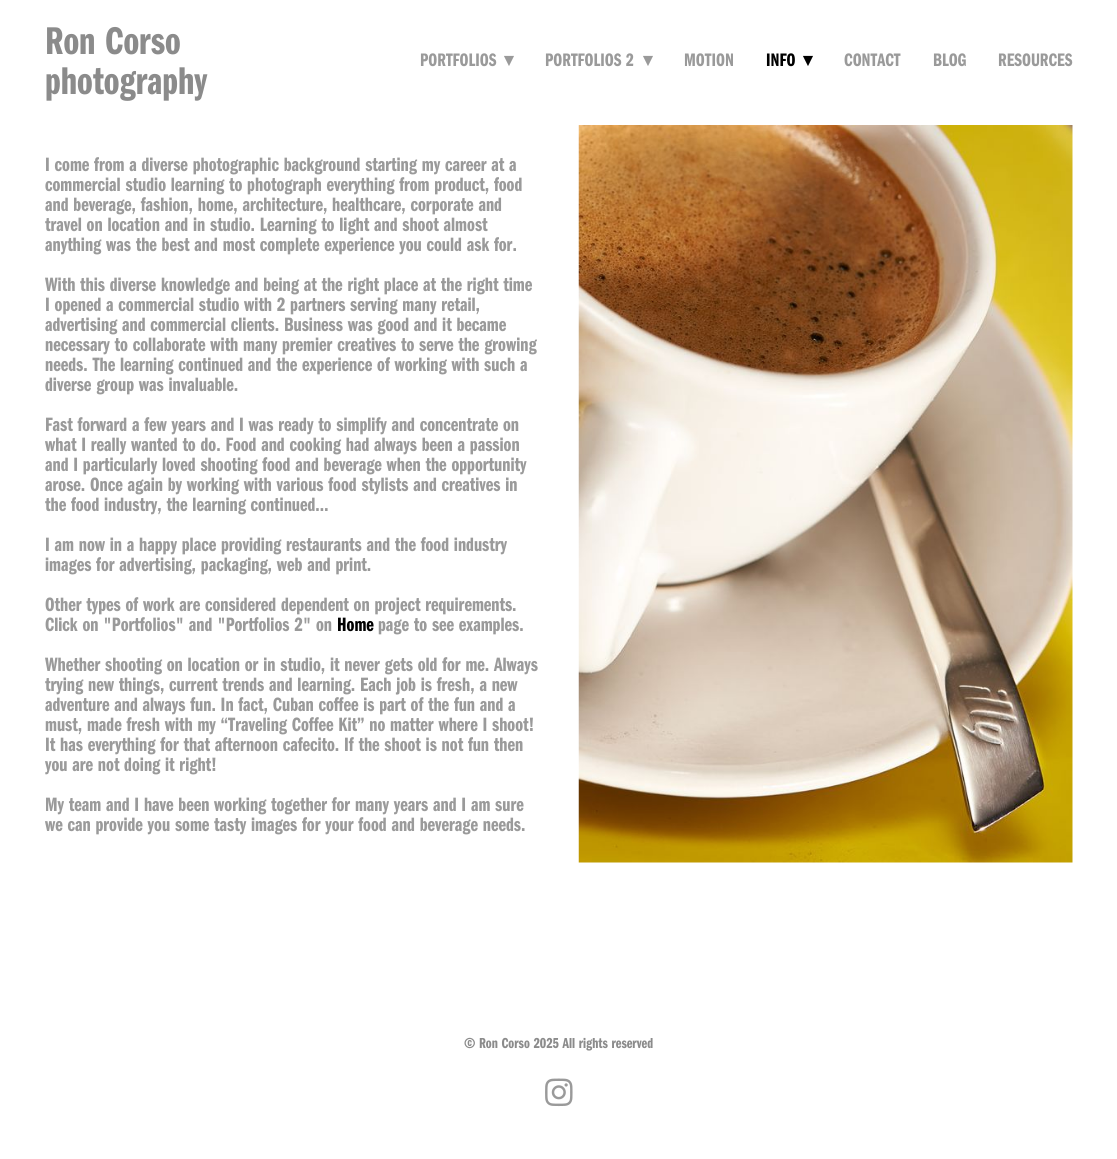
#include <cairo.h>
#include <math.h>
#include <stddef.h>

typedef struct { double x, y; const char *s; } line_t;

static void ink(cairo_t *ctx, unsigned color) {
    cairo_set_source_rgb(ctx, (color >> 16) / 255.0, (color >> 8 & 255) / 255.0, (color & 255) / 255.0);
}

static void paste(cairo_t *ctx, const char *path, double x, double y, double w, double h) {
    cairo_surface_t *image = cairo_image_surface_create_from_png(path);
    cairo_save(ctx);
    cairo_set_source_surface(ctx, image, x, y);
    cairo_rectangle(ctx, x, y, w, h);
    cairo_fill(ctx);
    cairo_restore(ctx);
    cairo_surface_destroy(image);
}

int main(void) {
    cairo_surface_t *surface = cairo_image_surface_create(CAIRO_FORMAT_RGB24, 1117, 1159);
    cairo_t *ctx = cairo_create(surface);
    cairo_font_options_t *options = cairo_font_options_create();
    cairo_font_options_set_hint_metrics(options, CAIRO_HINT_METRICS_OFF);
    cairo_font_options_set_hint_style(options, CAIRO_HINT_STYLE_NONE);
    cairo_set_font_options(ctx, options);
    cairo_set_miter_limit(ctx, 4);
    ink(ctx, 0xFFFFFF);
    cairo_paint(ctx);
    cairo_select_font_face(ctx, "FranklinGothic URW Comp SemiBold", CAIRO_FONT_SLANT_NORMAL, CAIRO_FONT_WEIGHT_NORMAL);
    cairo_set_font_size(ctx, 40);
    ink(ctx, 0x8B8B8B);
    cairo_move_to(ctx, 45, 54);
    cairo_show_text(ctx, "Ron Corso");
    cairo_move_to(ctx, 45, 94);
    cairo_show_text(ctx, "photography");
    cairo_set_font_size(ctx, 18.75);
    ink(ctx, 0x9A9A9A);
    cairo_move_to(ctx, 420, 66);
    cairo_show_text(ctx, "PORTFOLIOS");
    cairo_select_font_face(ctx, "DejaVu Sans", CAIRO_FONT_SLANT_NORMAL, CAIRO_FONT_WEIGHT_BOLD);
    cairo_move_to(ctx, 504, 66);
    cairo_show_text(ctx, "▾");
    cairo_select_font_face(ctx, "FranklinGothic URW Comp SemiBold", CAIRO_FONT_SLANT_NORMAL, CAIRO_FONT_WEIGHT_NORMAL);
    cairo_move_to(ctx, 545, 66);
    cairo_show_text(ctx, "PORTFOLIOS 2");
    cairo_select_font_face(ctx, "DejaVu Sans", CAIRO_FONT_SLANT_NORMAL, CAIRO_FONT_WEIGHT_BOLD);
    cairo_move_to(ctx, 643, 66);
    cairo_show_text(ctx, "▾");
    cairo_select_font_face(ctx, "FranklinGothic URW Comp SemiBold", CAIRO_FONT_SLANT_NORMAL, CAIRO_FONT_WEIGHT_NORMAL);
    cairo_move_to(ctx, 684, 66);
    cairo_show_text(ctx, "MOTION");
    ink(ctx, 0x000000);
    cairo_move_to(ctx, 766, 66);
    cairo_show_text(ctx, "INFO");
    cairo_select_font_face(ctx, "DejaVu Sans", CAIRO_FONT_SLANT_NORMAL, CAIRO_FONT_WEIGHT_BOLD);
    cairo_move_to(ctx, 803, 66);
    cairo_show_text(ctx, "▾");
    cairo_select_font_face(ctx, "FranklinGothic URW Comp SemiBold", CAIRO_FONT_SLANT_NORMAL, CAIRO_FONT_WEIGHT_NORMAL);
    ink(ctx, 0x9A9A9A);
    {
        static const line_t items[] = {
            {844, 66, "CONTACT"},
            {933, 66, "BLOG"},
            {998, 66, "RESOURCES"},
        };
        for (size_t i = 0; i < sizeof items / sizeof *items; i++) {
            cairo_move_to(ctx, items[i].x, items[i].y);
            cairo_show_text(ctx, items[i].s);
        }
    }
    cairo_set_font_size(ctx, 20);
    {
        static const line_t items[] = {
            {45, 171, "I come from a diverse photographic background starting my career at a"},
            {45, 191, "commercial studio learning to photograph everything from product, food"},
            {45, 211, "and beverage, fashion, home, architecture, healthcare, corporate and"},
            {45, 231, "travel on location and in studio. Learning to light and shoot almost"},
            {45, 251, "anything was the best and most complete experience you could ask for."},
            {45, 291, "With this diverse knowledge and being at the right place at the right time"},
            {45, 311, "I opened a commercial studio with 2 partners serving many retail,"},
            {45, 331, "advertising and commercial clients. Business was good and it became"},
            {45, 351, "necessary to collaborate with many premier creatives to serve the growing"},
            {45, 371, "needs. The learning continued and the experience of working with such a"},
            {45, 391, "diverse group was invaluable."},
            {45, 431, "Fast forward a few years and I was ready to simplify and concentrate on"},
            {45, 451, "what I really wanted to do. Food and cooking had always been a passion"},
            {45, 471, "and I particularly loved shooting food and beverage when the opportunity"},
            {45, 491, "arose. Once again by working with various food stylists and creatives in"},
            {45, 511, "the food industry, the learning continued…"},
            {45, 551, "I am now in a happy place providing restaurants and the food industry"},
            {45, 571, "images for advertising, packaging, web and print."},
            {45, 611, "Other types of work are considered dependent on project requirements."},
            {45, 631, "Click on \"Portfolios\" and \"Portfolios 2\" on"},
        };
        for (size_t i = 0; i < sizeof items / sizeof *items; i++) {
            cairo_move_to(ctx, items[i].x, items[i].y);
            cairo_show_text(ctx, items[i].s);
        }
    }
    ink(ctx, 0x000000);
    cairo_move_to(ctx, 337, 631);
    cairo_show_text(ctx, "Home");
    ink(ctx, 0x9A9A9A);
    {
        static const line_t items[] = {
            {378, 631, "page to see examples."},
            {45, 671, "Whether shooting on location or in studio, it never gets old for me. Always"},
            {45, 691, "trying new things, current trends and learning. Each job is fresh, a new"},
            {45, 711, "adventure and always fun. In fact, Cuban coffee is part of the fun and a"},
            {45, 731, "must, made fresh with my “Traveling Coffee Kit” no matter where I shoot!"},
            {45, 751, "It has everything for that afternoon cafecito. If the shoot is not fun then"},
            {45, 771, "you are not doing it right!"},
            {45, 811, "My team and I have been working together for many years and I am sure"},
            {45, 831, "we can provide you some tasty images for your food and beverage needs."},
        };
        for (size_t i = 0; i < sizeof items / sizeof *items; i++) {
            cairo_move_to(ctx, items[i].x, items[i].y);
            cairo_show_text(ctx, items[i].s);
        }
    }
    paste(ctx, "media/1.png", 578, 125, 495, 738);
    cairo_set_font_size(ctx, 15);
    ink(ctx, 0x8B8B8B);
    cairo_move_to(ctx, 464, 1048);
    cairo_show_text(ctx, "© Ron Corso 2025 All rights reserved");
    paste(ctx, "media/2.png", 545, 1078, 28, 29);
    cairo_surface_write_to_png(surface, "image.png");
    cairo_font_options_destroy(options);
    cairo_destroy(ctx);
    cairo_surface_destroy(surface);
    return 0;
}
